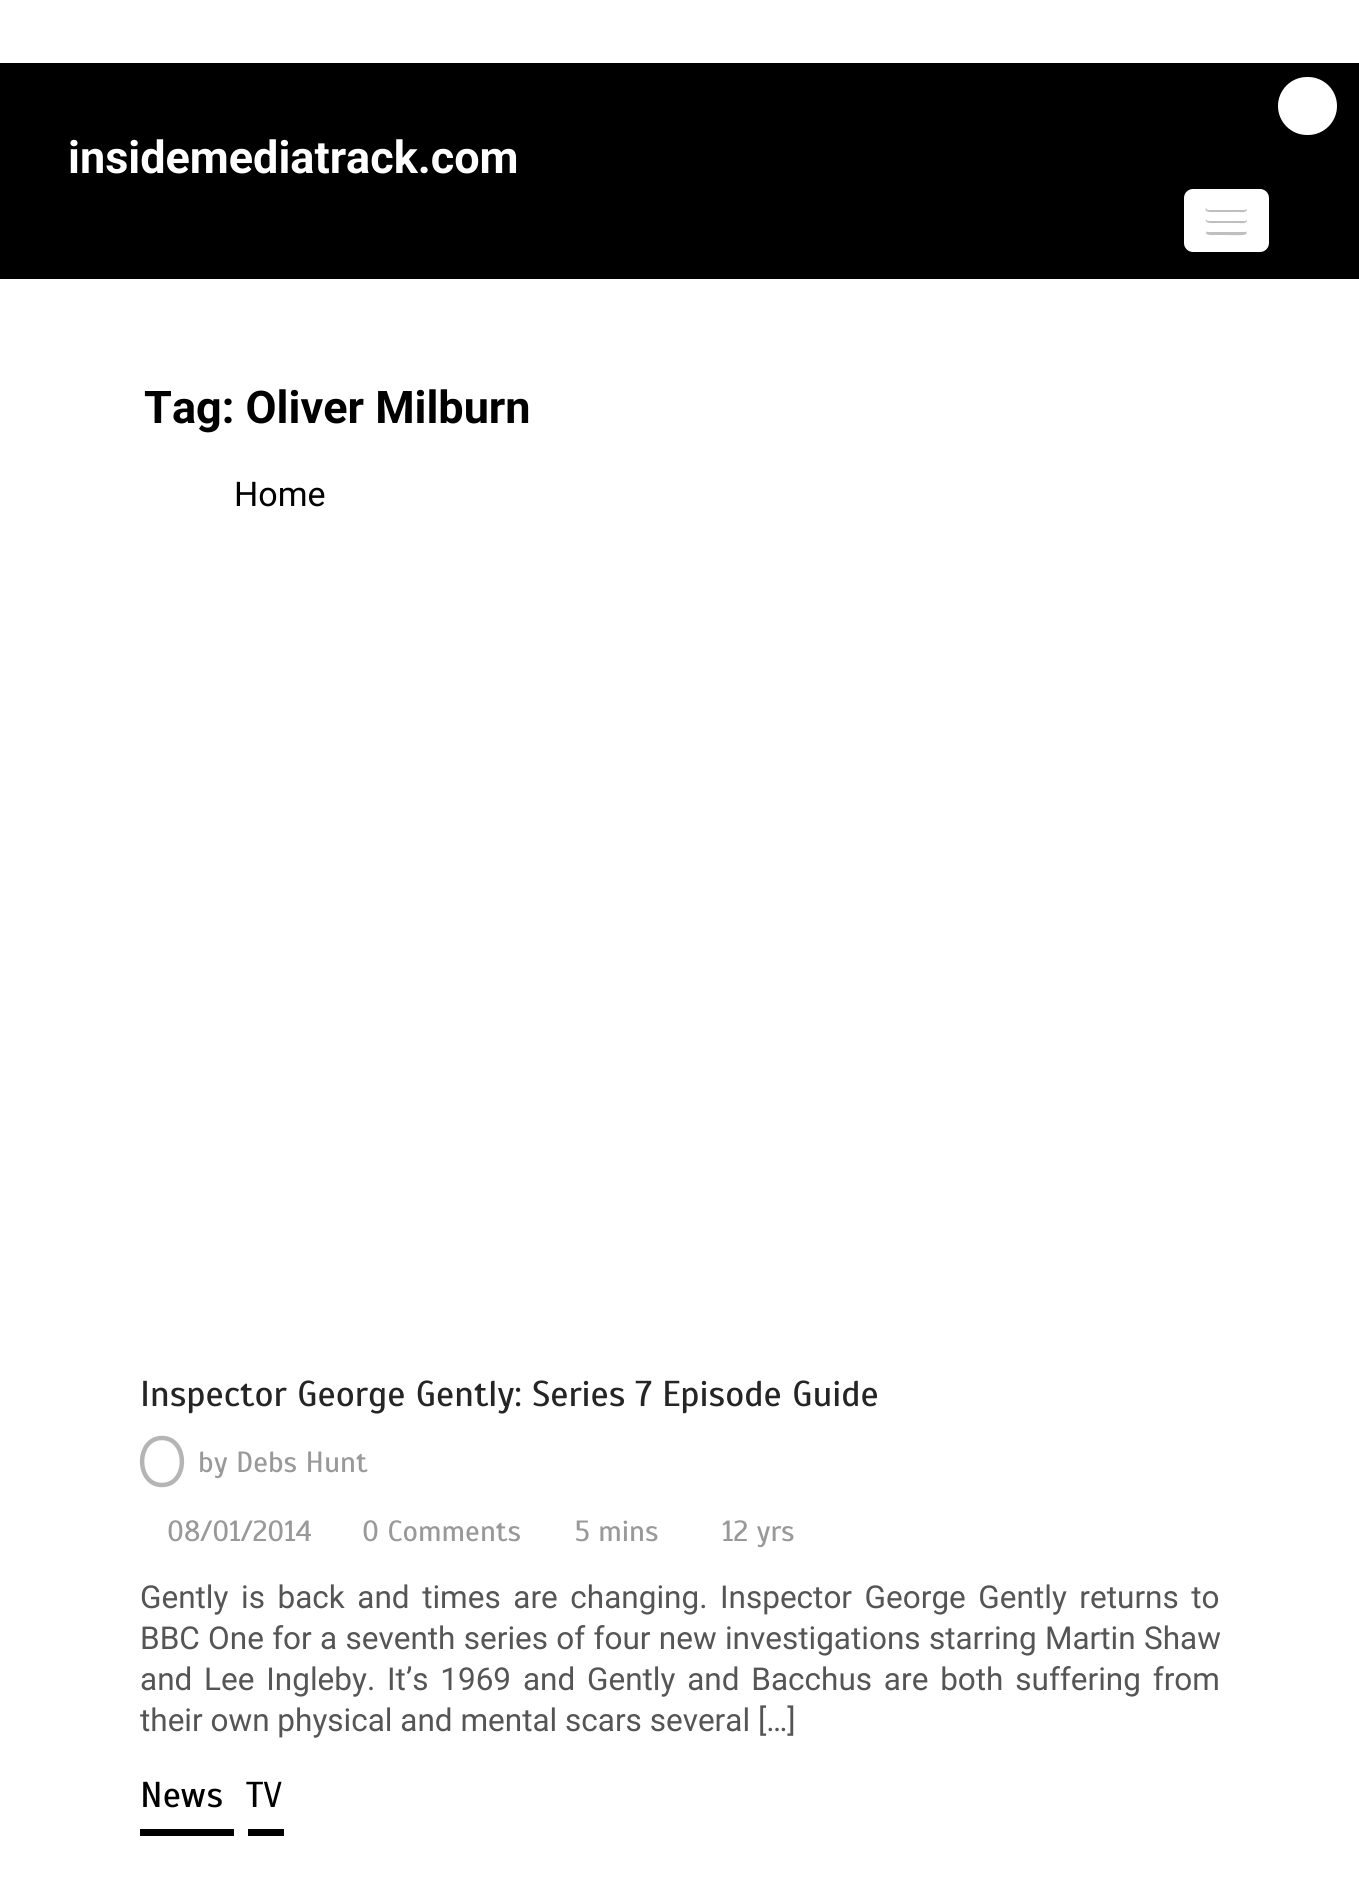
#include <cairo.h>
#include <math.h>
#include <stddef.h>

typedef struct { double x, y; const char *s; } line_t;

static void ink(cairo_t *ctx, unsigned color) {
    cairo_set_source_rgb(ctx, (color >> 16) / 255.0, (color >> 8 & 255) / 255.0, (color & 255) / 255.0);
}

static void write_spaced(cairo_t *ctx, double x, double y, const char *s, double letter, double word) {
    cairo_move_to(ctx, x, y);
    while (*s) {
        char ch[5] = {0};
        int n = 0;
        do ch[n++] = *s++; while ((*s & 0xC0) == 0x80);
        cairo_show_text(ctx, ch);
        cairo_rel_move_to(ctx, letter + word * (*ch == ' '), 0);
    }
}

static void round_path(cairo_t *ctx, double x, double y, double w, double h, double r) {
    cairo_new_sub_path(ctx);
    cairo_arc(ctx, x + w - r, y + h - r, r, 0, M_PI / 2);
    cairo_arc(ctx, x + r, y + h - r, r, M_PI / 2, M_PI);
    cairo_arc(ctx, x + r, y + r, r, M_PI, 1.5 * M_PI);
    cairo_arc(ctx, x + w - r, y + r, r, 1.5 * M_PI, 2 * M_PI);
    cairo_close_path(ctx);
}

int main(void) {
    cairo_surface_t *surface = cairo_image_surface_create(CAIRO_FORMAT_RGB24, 1359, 1888);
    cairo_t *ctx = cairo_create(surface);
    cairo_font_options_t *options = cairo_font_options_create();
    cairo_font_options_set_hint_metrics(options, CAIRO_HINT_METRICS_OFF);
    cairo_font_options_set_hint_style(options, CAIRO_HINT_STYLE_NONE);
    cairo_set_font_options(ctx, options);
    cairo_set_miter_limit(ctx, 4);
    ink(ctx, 0xFFFFFF);
    cairo_paint(ctx);
    ink(ctx, 0x000000);
    cairo_rectangle(ctx, 0, 63, 1359, 216);
    cairo_fill(ctx);
    ink(ctx, 0xFFFFFF);
    round_path(ctx, 1278, 77, 59, 58, 29);
    cairo_fill(ctx);
    cairo_select_font_face(ctx, "Roboto", CAIRO_FONT_SLANT_NORMAL, CAIRO_FONT_WEIGHT_BOLD);
    cairo_set_font_size(ctx, 45);
    cairo_move_to(ctx, 68, 173);
    cairo_show_text(ctx, "insidemediatrack.com");
    round_path(ctx, 1184, 189, 85, 63, 9);
    cairo_fill(ctx);
    ink(ctx, 0xBFBFBF);
    cairo_new_path(ctx);
    cairo_move_to(ctx, 1206, 208);
    cairo_curve_to(ctx, 1203, 213, 1214, 212, 1214, 212);
    cairo_line_to(ctx, 1238, 212);
    cairo_curve_to(ctx, 1240, 212, 1246, 213, 1247, 210);
    cairo_line_to(ctx, 1246, 208);
    cairo_line_to(ctx, 1245, 209);
    cairo_line_to(ctx, 1208, 209);
    cairo_close_path(ctx);
    cairo_fill(ctx);
    ink(ctx, 0xFFFFFF);
    round_path(ctx, 1206, 205, 41, 5, 2.5);
    cairo_fill(ctx);
    ink(ctx, 0xBFBFBF);
    cairo_new_path(ctx);
    cairo_move_to(ctx, 1206, 219);
    cairo_curve_to(ctx, 1204, 224, 1214, 223, 1214, 223);
    cairo_line_to(ctx, 1238, 223);
    cairo_curve_to(ctx, 1240, 223, 1246, 224, 1247, 221);
    cairo_line_to(ctx, 1246, 219);
    cairo_curve_to(ctx, 1246, 220, 1245, 220, 1244, 220);
    cairo_line_to(ctx, 1208, 220);
    cairo_curve_to(ctx, 1207, 220, 1207, 220, 1206, 219);
    cairo_close_path(ctx);
    cairo_fill(ctx);
    ink(ctx, 0xFFFFFF);
    round_path(ctx, 1206, 216, 41, 5, 2.5);
    cairo_fill(ctx);
    ink(ctx, 0xBFBFBF);
    cairo_new_path(ctx);
    cairo_move_to(ctx, 1207, 231);
    cairo_curve_to(ctx, 1203, 236, 1214, 235, 1214, 235);
    cairo_line_to(ctx, 1226, 235);
    cairo_curve_to(ctx, 1230, 235, 1244, 236, 1246, 234);
    cairo_curve_to(ctx, 1247, 233, 1247, 232, 1246, 231);
    cairo_line_to(ctx, 1245, 232);
    cairo_line_to(ctx, 1208, 232);
    cairo_close_path(ctx);
    cairo_fill(ctx);
    ink(ctx, 0xFFFFFF);
    round_path(ctx, 1206, 227, 41, 5, 2.5);
    cairo_fill(ctx);
    ink(ctx, 0x000000);
    cairo_move_to(ctx, 144, 423);
    cairo_show_text(ctx, "Tag: Oliver Milburn");
    cairo_select_font_face(ctx, "Roboto", CAIRO_FONT_SLANT_NORMAL, CAIRO_FONT_WEIGHT_NORMAL);
    cairo_set_font_size(ctx, 34);
    cairo_move_to(ctx, 234, 506);
    cairo_show_text(ctx, "Home");
    cairo_select_font_face(ctx, "Scada", CAIRO_FONT_SLANT_NORMAL, CAIRO_FONT_WEIGHT_NORMAL);
    cairo_set_font_size(ctx, 36);
    ink(ctx, 0x252525);
    cairo_move_to(ctx, 140, 1406);
    cairo_show_text(ctx, "Inspector George Gently: Series 7 Episode Guide");
    cairo_new_path(ctx);
    cairo_move_to(ctx, 162, 1438);
    cairo_curve_to(ctx, 188.5, 1438, 188.5, 1485, 162, 1485);
    cairo_curve_to(ctx, 135.5, 1485, 135.5, 1438, 162, 1438);
    cairo_close_path(ctx);
    ink(ctx, 0xB7B4B4);
    cairo_set_line_width(ctx, 4.5);
    cairo_stroke(ctx);
    cairo_set_font_size(ctx, 29.25);
    ink(ctx, 0x999999);
    {
        static const line_t items[] = {
            {198, 1472, "by Debs Hunt"},
            {167, 1541, "08/01/2014"},
            {362, 1541, "0 Comments"},
            {575, 1541, "5 mins"},
            {722, 1541, "12 yrs"},
        };
        for (size_t i = 0; i < sizeof items / sizeof *items; i++) {
            cairo_move_to(ctx, items[i].x, items[i].y);
            cairo_show_text(ctx, items[i].s);
        }
    }
    cairo_select_font_face(ctx, "Roboto", CAIRO_FONT_SLANT_NORMAL, CAIRO_FONT_WEIGHT_NORMAL);
    cairo_set_font_size(ctx, 31.5);
    ink(ctx, 0x555555);
    write_spaced(ctx, 140, 1608, "Gently is back and times are changing. Inspector George Gently returns to", 0, 4.75);
    write_spaced(ctx, 140, 1649, "BBC One for a seventh series of four new investigations starring Martin Shaw", 0, 0.5);
    write_spaced(ctx, 140, 1690, "and Lee Ingleby. It’s 1969 and Gently and Bacchus are both suffering from", 0, 4);
    cairo_move_to(ctx, 140, 1731);
    cairo_show_text(ctx, "their own physical and mental scars several […]");
    cairo_select_font_face(ctx, "Scada", CAIRO_FONT_SLANT_NORMAL, CAIRO_FONT_WEIGHT_NORMAL);
    cairo_set_font_size(ctx, 36);
    ink(ctx, 0x000000);
    cairo_move_to(ctx, 140, 1807);
    cairo_show_text(ctx, "News");
    cairo_rectangle(ctx, 140, 1829, 94, 7);
    cairo_fill(ctx);
    cairo_move_to(ctx, 246, 1807);
    cairo_show_text(ctx, "TV");
    cairo_rectangle(ctx, 248, 1829, 36, 7);
    cairo_fill(ctx);
    cairo_surface_write_to_png(surface, "image.png");
    cairo_font_options_destroy(options);
    cairo_destroy(ctx);
    cairo_surface_destroy(surface);
    return 0;
}
